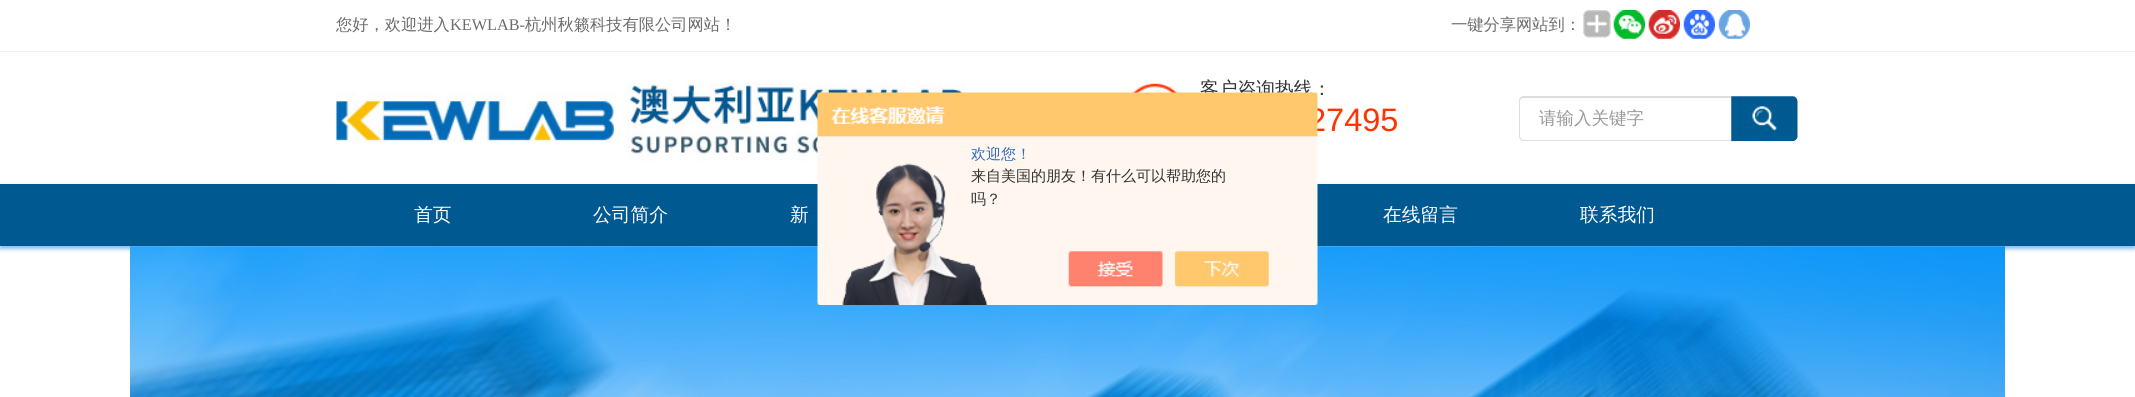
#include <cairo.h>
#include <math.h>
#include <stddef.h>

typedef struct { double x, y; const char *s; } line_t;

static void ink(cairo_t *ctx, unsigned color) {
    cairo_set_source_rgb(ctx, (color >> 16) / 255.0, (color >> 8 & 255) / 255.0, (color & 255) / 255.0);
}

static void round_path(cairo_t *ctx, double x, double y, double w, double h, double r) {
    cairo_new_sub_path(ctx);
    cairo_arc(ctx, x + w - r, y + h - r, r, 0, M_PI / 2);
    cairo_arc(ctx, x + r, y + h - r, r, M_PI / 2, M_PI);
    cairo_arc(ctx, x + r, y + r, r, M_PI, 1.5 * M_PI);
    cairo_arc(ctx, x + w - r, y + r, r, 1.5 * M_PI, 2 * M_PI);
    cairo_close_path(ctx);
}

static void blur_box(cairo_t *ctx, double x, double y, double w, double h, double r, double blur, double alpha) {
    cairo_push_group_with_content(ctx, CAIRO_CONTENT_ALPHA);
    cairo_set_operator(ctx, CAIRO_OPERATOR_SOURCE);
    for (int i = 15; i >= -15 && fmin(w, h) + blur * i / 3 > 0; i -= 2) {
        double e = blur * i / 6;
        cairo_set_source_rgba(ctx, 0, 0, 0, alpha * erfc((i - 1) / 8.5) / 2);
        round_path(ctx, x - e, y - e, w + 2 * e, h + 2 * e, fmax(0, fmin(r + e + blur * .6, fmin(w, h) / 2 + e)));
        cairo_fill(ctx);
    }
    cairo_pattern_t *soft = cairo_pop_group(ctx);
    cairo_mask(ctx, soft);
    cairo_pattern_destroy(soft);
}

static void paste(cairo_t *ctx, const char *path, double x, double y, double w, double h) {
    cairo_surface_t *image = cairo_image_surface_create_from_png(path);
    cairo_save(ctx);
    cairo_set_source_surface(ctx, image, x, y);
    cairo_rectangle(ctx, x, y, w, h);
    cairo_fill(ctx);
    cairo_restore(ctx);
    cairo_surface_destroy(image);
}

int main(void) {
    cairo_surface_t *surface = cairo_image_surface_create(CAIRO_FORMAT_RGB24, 2135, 397);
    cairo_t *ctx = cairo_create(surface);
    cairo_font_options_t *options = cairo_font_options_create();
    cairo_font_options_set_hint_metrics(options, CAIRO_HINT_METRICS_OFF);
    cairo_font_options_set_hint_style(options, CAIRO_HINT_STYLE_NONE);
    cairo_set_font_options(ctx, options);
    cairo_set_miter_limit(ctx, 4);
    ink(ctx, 0xFFFFFF);
    cairo_paint(ctx);
    ink(ctx, 0xF1F1F1);
    cairo_rectangle(ctx, 0, 51, 2135, 1);
    cairo_fill(ctx);
    cairo_select_font_face(ctx, "WenQuanYi Zen Hei Medium", CAIRO_FONT_SLANT_NORMAL, CAIRO_FONT_WEIGHT_NORMAL);
    cairo_set_font_size(ctx, 16.25);
    ink(ctx, 0x6C6C6C);
    cairo_move_to(ctx, 336, 30);
    cairo_show_text(ctx, "您好，欢迎进入");
    cairo_select_font_face(ctx, "Liberation Serif", CAIRO_FONT_SLANT_NORMAL, CAIRO_FONT_WEIGHT_NORMAL);
    cairo_move_to(ctx, 450, 30);
    cairo_show_text(ctx, "KEWLAB-");
    cairo_select_font_face(ctx, "WenQuanYi Zen Hei Medium", CAIRO_FONT_SLANT_NORMAL, CAIRO_FONT_WEIGHT_NORMAL);
    cairo_move_to(ctx, 525, 30);
    cairo_show_text(ctx, "杭州秋籁科技有限公司网站！");
    cairo_move_to(ctx, 1451, 30);
    cairo_show_text(ctx, "一键分享网站到：");
    paste(ctx, "media/1.png", 1583, 10, 28, 29);
    paste(ctx, "media/2.png", 1613, 10, 32, 29);
    paste(ctx, "media/3.png", 1648, 10, 32, 29);
    paste(ctx, "media/4.png", 1683, 10, 32, 29);
    paste(ctx, "media/5.png", 1718, 10, 32, 29);
    ink(ctx, 0x89BCEB);
    blur_box(ctx, 0, 186, 2135, 63, 0, 2, 1);
    paste(ctx, "media/6.png", 336, 82, 750, 102);
    paste(ctx, "media/7.png", 1132, 83, 46, 10);
    cairo_set_font_size(ctx, 18.75);
    ink(ctx, 0x333333);
    cairo_move_to(ctx, 1200, 95);
    cairo_show_text(ctx, "客户咨询热线：");
    cairo_select_font_face(ctx, "Liberation Sans", CAIRO_FONT_SLANT_NORMAL, CAIRO_FONT_WEIGHT_NORMAL);
    cairo_set_font_size(ctx, 32.5);
    ink(ctx, 0xFF3300);
    cairo_move_to(ctx, 1308, 131);
    cairo_show_text(ctx, "27495");
    ink(ctx, 0xDDDDDD);
    cairo_set_fill_rule(ctx, CAIRO_FILL_RULE_EVEN_ODD);
    cairo_new_path(ctx);
    cairo_move_to(ctx, 1524, 96);
    cairo_line_to(ctx, 1731, 96);
    cairo_line_to(ctx, 1731, 141);
    cairo_line_to(ctx, 1524, 141);
    cairo_curve_to(ctx, 1521, 141, 1519, 139, 1519, 136);
    cairo_line_to(ctx, 1519, 101);
    cairo_curve_to(ctx, 1519, 98, 1521, 96, 1524, 96);
    cairo_close_path(ctx);
    cairo_move_to(ctx, 1524, 98);
    cairo_line_to(ctx, 1731, 98);
    cairo_line_to(ctx, 1731, 140);
    cairo_line_to(ctx, 1524, 140);
    cairo_curve_to(ctx, 1522, 140, 1520, 138, 1520, 136);
    cairo_line_to(ctx, 1520, 101);
    cairo_curve_to(ctx, 1520, 99, 1522, 98, 1524, 98);
    cairo_close_path(ctx);
    cairo_fill(ctx);
    cairo_select_font_face(ctx, "WenQuanYi Zen Hei Medium", CAIRO_FONT_SLANT_NORMAL, CAIRO_FONT_WEIGHT_NORMAL);
    cairo_set_font_size(ctx, 17.5);
    ink(ctx, 0x999999);
    cairo_move_to(ctx, 1539, 124);
    cairo_show_text(ctx, "请输入关键字");
    paste(ctx, "media/8.png", 1731, 96, 67, 46);
    ink(ctx, 0x005991);
    cairo_rectangle(ctx, 0, 184, 2135, 62);
    cairo_fill(ctx);
    paste(ctx, "media/10.png", 130, 246, 1875, 151);
    paste(ctx, "media/9.png", 817, 92, 501, 213);
    cairo_set_font_size(ctx, 15);
    ink(ctx, 0x2E6EC6);
    cairo_move_to(ctx, 971, 159);
    cairo_show_text(ctx, "欢迎您！");
    ink(ctx, 0x333333);
    cairo_move_to(ctx, 971, 181);
    cairo_show_text(ctx, "来自美国的朋友！有什么可以帮助您的");
    cairo_move_to(ctx, 971, 204);
    cairo_show_text(ctx, "吗？");
    cairo_set_font_size(ctx, 18.75);
    ink(ctx, 0xFFFFFF);
    {
        static const line_t items[] = {
            {414, 221, "首页"},
            {593, 221, "公司简介"},
            {790, 221, "新"},
            {1383, 221, "在线留言"},
            {1580, 221, "联系我们"},
        };
        for (size_t i = 0; i < sizeof items / sizeof *items; i++) {
            cairo_move_to(ctx, items[i].x, items[i].y);
            cairo_show_text(ctx, items[i].s);
        }
    }
    cairo_surface_write_to_png(surface, "image.png");
    cairo_font_options_destroy(options);
    cairo_destroy(ctx);
    cairo_surface_destroy(surface);
    return 0;
}
